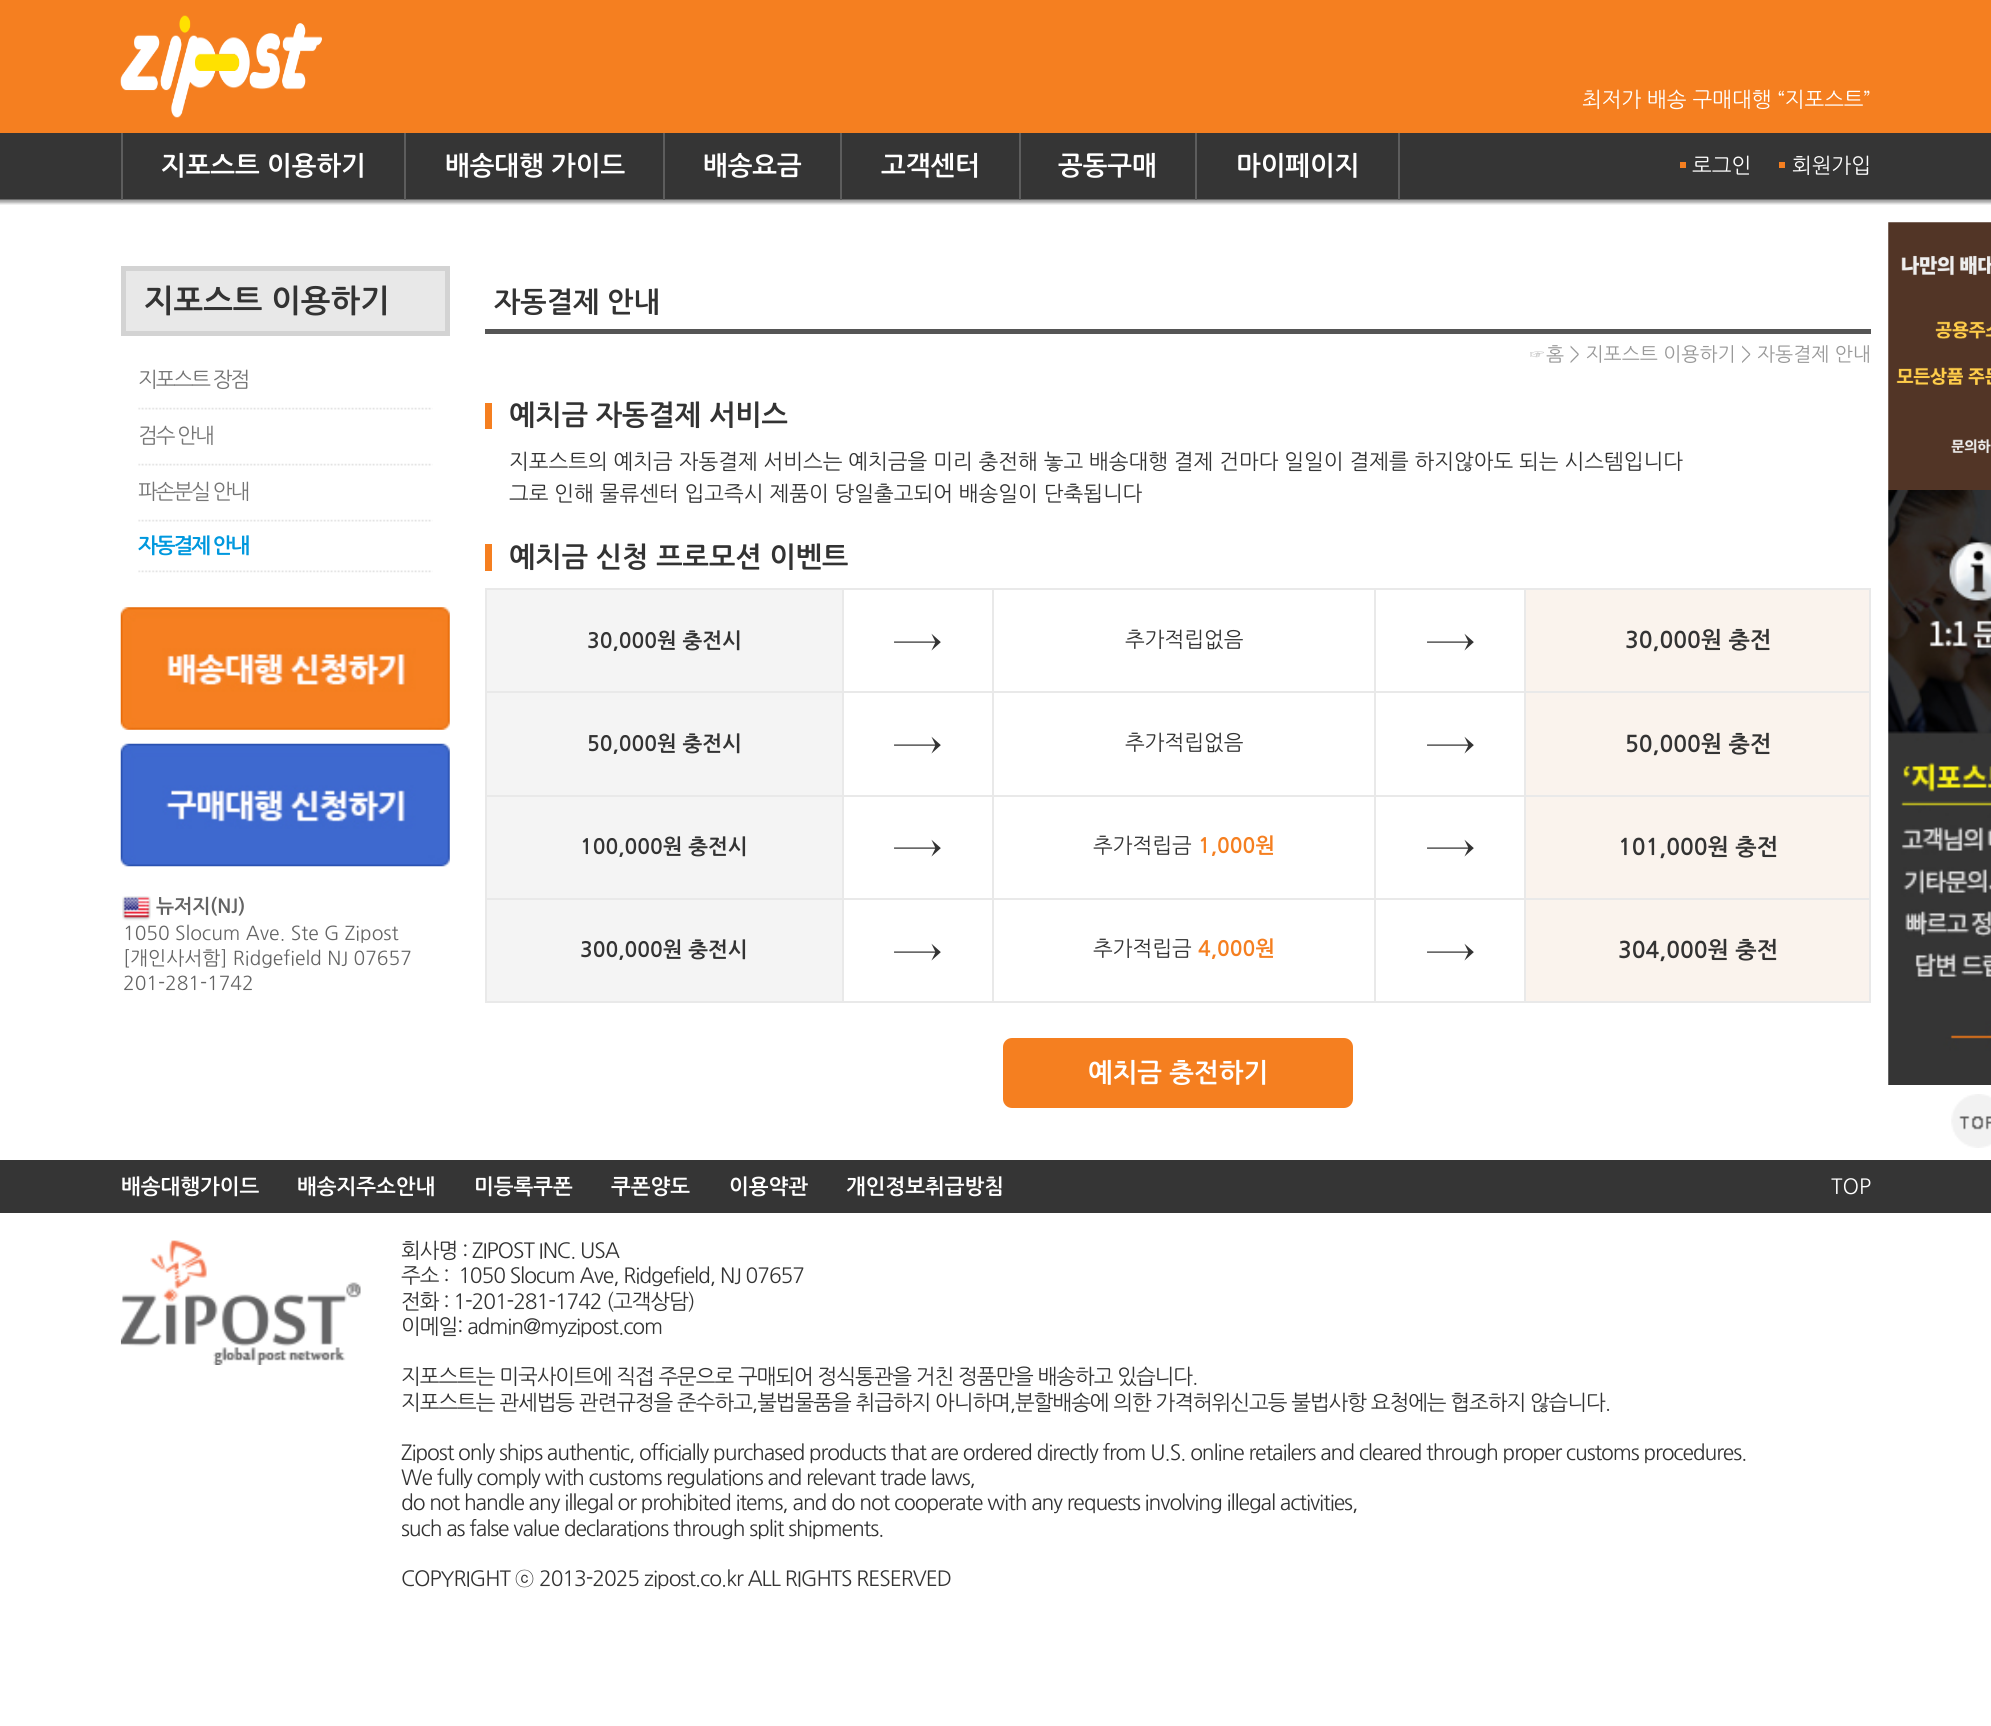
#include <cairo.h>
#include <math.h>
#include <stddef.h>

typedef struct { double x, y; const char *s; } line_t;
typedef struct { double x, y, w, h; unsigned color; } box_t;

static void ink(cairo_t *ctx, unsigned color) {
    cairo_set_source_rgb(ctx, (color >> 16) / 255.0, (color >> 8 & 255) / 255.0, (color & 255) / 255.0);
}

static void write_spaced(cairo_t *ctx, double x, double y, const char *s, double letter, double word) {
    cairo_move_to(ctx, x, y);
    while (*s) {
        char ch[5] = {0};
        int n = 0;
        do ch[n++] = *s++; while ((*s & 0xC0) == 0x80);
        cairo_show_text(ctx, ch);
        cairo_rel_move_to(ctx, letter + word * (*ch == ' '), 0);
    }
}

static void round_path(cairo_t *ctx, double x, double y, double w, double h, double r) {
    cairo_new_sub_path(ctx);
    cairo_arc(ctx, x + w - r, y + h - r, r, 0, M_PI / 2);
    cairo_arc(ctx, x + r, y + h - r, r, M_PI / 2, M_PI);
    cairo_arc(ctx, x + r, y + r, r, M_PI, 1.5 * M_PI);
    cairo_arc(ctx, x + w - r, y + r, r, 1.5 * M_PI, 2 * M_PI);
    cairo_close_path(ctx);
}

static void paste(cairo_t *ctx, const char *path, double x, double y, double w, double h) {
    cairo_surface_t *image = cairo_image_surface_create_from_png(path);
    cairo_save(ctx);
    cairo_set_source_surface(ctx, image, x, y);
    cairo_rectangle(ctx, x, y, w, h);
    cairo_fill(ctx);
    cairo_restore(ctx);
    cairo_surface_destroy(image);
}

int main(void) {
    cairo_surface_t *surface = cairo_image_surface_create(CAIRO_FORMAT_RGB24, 1991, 1726);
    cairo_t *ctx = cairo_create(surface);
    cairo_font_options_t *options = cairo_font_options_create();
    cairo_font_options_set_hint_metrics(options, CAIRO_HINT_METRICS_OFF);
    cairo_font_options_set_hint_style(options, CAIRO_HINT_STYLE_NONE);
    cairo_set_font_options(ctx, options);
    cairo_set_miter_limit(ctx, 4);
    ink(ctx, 0xFFFFFF);
    cairo_paint(ctx);
    ink(ctx, 0xF57F20);
    cairo_rectangle(ctx, 0, 0, 1991, 133);
    cairo_fill(ctx);
    paste(ctx, "media/1.png", 120, 15, 202, 103);
    cairo_select_font_face(ctx, "NanumGothic", CAIRO_FONT_SLANT_NORMAL, CAIRO_FONT_WEIGHT_NORMAL);
    cairo_set_font_size(ctx, 21);
    ink(ctx, 0xFFFFFF);
    cairo_move_to(ctx, 1582, 107);
    cairo_show_text(ctx, "최저가 배송 구매대행 “지포스트”");
    paste(ctx, "media/2.png", 0, 133, 1991, 72);
    ink(ctx, 0x5D5D5D);
    cairo_rectangle(ctx, 1398, 133, 2, 67);
    cairo_fill(ctx);
    cairo_rectangle(ctx, 121, 133, 2, 67);
    cairo_fill(ctx);
    cairo_select_font_face(ctx, "NanumGothic", CAIRO_FONT_SLANT_NORMAL, CAIRO_FONT_WEIGHT_BOLD);
    cairo_set_font_size(ctx, 26.25);
    ink(ctx, 0xFFFFFF);
    cairo_move_to(ctx, 161, 175);
    cairo_show_text(ctx, "지포스트 이용하기");
    ink(ctx, 0x5D5D5D);
    cairo_rectangle(ctx, 404, 133, 2, 67);
    cairo_fill(ctx);
    ink(ctx, 0xFFFFFF);
    cairo_move_to(ctx, 445, 175);
    cairo_show_text(ctx, "배송대행 가이드");
    ink(ctx, 0x5D5D5D);
    cairo_rectangle(ctx, 663, 133, 2, 67);
    cairo_fill(ctx);
    ink(ctx, 0xFFFFFF);
    cairo_move_to(ctx, 703, 175);
    cairo_show_text(ctx, "배송요금");
    ink(ctx, 0x5D5D5D);
    cairo_rectangle(ctx, 840, 133, 2, 67);
    cairo_fill(ctx);
    ink(ctx, 0xFFFFFF);
    cairo_move_to(ctx, 881, 175);
    cairo_show_text(ctx, "고객센터");
    ink(ctx, 0x5D5D5D);
    cairo_rectangle(ctx, 1019, 133, 2, 67);
    cairo_fill(ctx);
    ink(ctx, 0xFFFFFF);
    cairo_move_to(ctx, 1058, 175);
    cairo_show_text(ctx, "공동구매");
    ink(ctx, 0x5D5D5D);
    cairo_rectangle(ctx, 1195, 133, 2, 67);
    cairo_fill(ctx);
    ink(ctx, 0xFFFFFF);
    cairo_move_to(ctx, 1236, 175);
    cairo_show_text(ctx, "마이페이지");
    ink(ctx, 0xF57F20);
    cairo_rectangle(ctx, 1680, 162, 6, 6);
    cairo_fill(ctx);
    cairo_select_font_face(ctx, "NanumGothic", CAIRO_FONT_SLANT_NORMAL, CAIRO_FONT_WEIGHT_NORMAL);
    cairo_set_font_size(ctx, 21);
    ink(ctx, 0xFFFFFF);
    cairo_move_to(ctx, 1692, 173);
    cairo_show_text(ctx, "로그인");
    ink(ctx, 0xF57F20);
    cairo_rectangle(ctx, 1779, 162, 6, 6);
    cairo_fill(ctx);
    ink(ctx, 0xFFFFFF);
    cairo_move_to(ctx, 1792, 173);
    cairo_show_text(ctx, "회원가입");
    ink(ctx, 0xE8E8E8);
    cairo_rectangle(ctx, 123.5, 268.5, 324, 65);
    cairo_fill_preserve(ctx);
    ink(ctx, 0xD3D3D3);
    cairo_set_line_width(ctx, 5);
    cairo_stroke(ctx);
    cairo_select_font_face(ctx, "NanumGothic", CAIRO_FONT_SLANT_NORMAL, CAIRO_FONT_WEIGHT_BOLD);
    cairo_set_font_size(ctx, 31.5);
    ink(ctx, 0x333333);
    cairo_move_to(ctx, 144, 312);
    cairo_show_text(ctx, "지포스트 이용하기");
    cairo_select_font_face(ctx, "NanumGothic", CAIRO_FONT_SLANT_NORMAL, CAIRO_FONT_WEIGHT_NORMAL);
    cairo_set_font_size(ctx, 21);
    ink(ctx, 0x757575);
    write_spaced(ctx, 138, 387, "지포스트 장점", -2, 0);
    paste(ctx, "media/3.png", 138, 407, 295, 3);
    write_spaced(ctx, 138, 443, "검수 안내", -2, 0);
    paste(ctx, "media/3.png", 138, 463, 295, 3);
    write_spaced(ctx, 138, 499, "파손분실 안내", -2, 0);
    paste(ctx, "media/3.png", 138, 519, 295, 3);
    cairo_select_font_face(ctx, "NanumGothic", CAIRO_FONT_SLANT_NORMAL, CAIRO_FONT_WEIGHT_BOLD);
    ink(ctx, 0x0098DE);
    write_spaced(ctx, 138, 553, "자동결제 안내", -2, 0);
    paste(ctx, "media/4.png", 138, 570, 295, 3);
    paste(ctx, "media/5.png", 120, 607, 330, 123);
    paste(ctx, "media/6.png", 120, 743, 330, 124);
    paste(ctx, "media/7.png", 122, 896, 29, 25);
    cairo_set_font_size(ctx, 19.25);
    ink(ctx, 0x646464);
    cairo_move_to(ctx, 156, 913);
    cairo_show_text(ctx, "뉴저지(NJ)");
    cairo_select_font_face(ctx, "NanumGothic", CAIRO_FONT_SLANT_NORMAL, CAIRO_FONT_WEIGHT_NORMAL);
    {
        static const line_t items[] = {
            {123, 940, "1050 Slocum Ave. Ste G Zipost"},
            {123, 965, "[개인사서함] Ridgefield NJ 07657"},
            {123, 990, "201-281-1742"},
        };
        for (size_t i = 0; i < sizeof items / sizeof *items; i++) {
            cairo_move_to(ctx, items[i].x, items[i].y);
            cairo_show_text(ctx, items[i].s);
        }
    }
    ink(ctx, 0x555555);
    cairo_rectangle(ctx, 485, 329, 1386, 5);
    cairo_fill(ctx);
    cairo_select_font_face(ctx, "NanumGothic", CAIRO_FONT_SLANT_NORMAL, CAIRO_FONT_WEIGHT_BOLD);
    cairo_set_font_size(ctx, 28);
    ink(ctx, 0x333333);
    cairo_move_to(ctx, 494, 312);
    cairo_show_text(ctx, "자동결제 안내");
    cairo_select_font_face(ctx, "NanumGothic", CAIRO_FONT_SLANT_NORMAL, CAIRO_FONT_WEIGHT_NORMAL);
    cairo_set_font_size(ctx, 19.25);
    ink(ctx, 0x999999);
    cairo_move_to(ctx, 1528, 361);
    cairo_show_text(ctx, "☞홈 > 지포스트 이용하기 > 자동결제 안내");
    ink(ctx, 0xF57F20);
    cairo_rectangle(ctx, 485, 403, 7, 26);
    cairo_fill(ctx);
    cairo_select_font_face(ctx, "NanumGothic", CAIRO_FONT_SLANT_NORMAL, CAIRO_FONT_WEIGHT_BOLD);
    cairo_set_font_size(ctx, 28);
    ink(ctx, 0x333333);
    cairo_move_to(ctx, 509, 425);
    cairo_show_text(ctx, "예치금 자동결제 서비스");
    cairo_select_font_face(ctx, "NanumGothic", CAIRO_FONT_SLANT_NORMAL, CAIRO_FONT_WEIGHT_NORMAL);
    cairo_set_font_size(ctx, 21);
    cairo_move_to(ctx, 509, 469);
    cairo_show_text(ctx, "지포스트의 예치금 자동결제 서비스는 예치금을 미리 충전해 놓고 배송대행 결제 건마다 일일이 결제를 하지않아도 되는 시스템입니다");
    cairo_move_to(ctx, 509, 501);
    cairo_show_text(ctx, "그로 인해 물류센터 입고즉시 제품이 당일출고되어 배송일이 단축됩니다");
    ink(ctx, 0xF57F20);
    cairo_rectangle(ctx, 485, 544, 7, 27);
    cairo_fill(ctx);
    cairo_select_font_face(ctx, "NanumGothic", CAIRO_FONT_SLANT_NORMAL, CAIRO_FONT_WEIGHT_BOLD);
    cairo_set_font_size(ctx, 28);
    ink(ctx, 0x333333);
    cairo_move_to(ctx, 509, 567);
    cairo_show_text(ctx, "예치금 신청 프로모션 이벤트");
    {
        static const box_t items[] = {
            {487, 590, 355, 101, 0xF4F4F4},
            {1524, 588, 347, 2, 0xE9E9E9},
            {1524, 691, 347, 2, 0xE9E9E9},
            {1524, 795, 347, 2, 0xE9E9E9},
            {1524, 898, 347, 2, 0xE9E9E9},
            {1869, 898, 2, 105, 0xE9E9E9},
            {1524, 1001, 347, 2, 0xE9E9E9},
            {1524, 898, 2, 105, 0xE9E9E9},
            {1374, 898, 152, 2, 0xE9E9E9},
            {1524, 795, 2, 105, 0xE9E9E9},
            {1374, 795, 152, 2, 0xE9E9E9},
            {1524, 691, 2, 105, 0xE9E9E9},
            {1374, 691, 152, 2, 0xE9E9E9},
            {1524, 588, 2, 105, 0xE9E9E9},
            {1374, 588, 152, 2, 0xE9E9E9},
            {1374, 1001, 152, 2, 0xE9E9E9},
            {1374, 898, 2, 105, 0xE9E9E9},
            {992, 898, 384, 2, 0xE9E9E9},
            {1374, 795, 2, 105, 0xE9E9E9},
            {992, 795, 384, 2, 0xE9E9E9},
            {1374, 691, 2, 105, 0xE9E9E9},
            {992, 691, 384, 2, 0xE9E9E9},
            {1374, 588, 2, 105, 0xE9E9E9},
            {992, 588, 384, 2, 0xE9E9E9},
            {992, 1001, 384, 2, 0xE9E9E9},
            {992, 898, 2, 105, 0xE9E9E9},
            {842, 898, 152, 2, 0xE9E9E9},
            {992, 795, 2, 105, 0xE9E9E9},
            {842, 795, 152, 2, 0xE9E9E9},
            {992, 691, 2, 105, 0xE9E9E9},
            {842, 691, 152, 2, 0xE9E9E9},
            {992, 588, 2, 105, 0xE9E9E9},
            {842, 588, 152, 2, 0xE9E9E9},
            {842, 1001, 152, 2, 0xE9E9E9},
            {842, 898, 2, 105, 0xE9E9E9},
            {485, 898, 359, 2, 0xE9E9E9},
            {842, 795, 2, 105, 0xE9E9E9},
            {485, 795, 359, 2, 0xE9E9E9},
            {842, 691, 2, 105, 0xE9E9E9},
            {485, 691, 359, 2, 0xE9E9E9},
            {842, 588, 2, 105, 0xE9E9E9},
            {485, 588, 359, 2, 0xE9E9E9},
            {485, 1001, 359, 2, 0xE9E9E9},
            {485, 898, 2, 105, 0xE9E9E9},
            {485, 795, 2, 105, 0xE9E9E9},
            {485, 691, 2, 105, 0xE9E9E9},
            {485, 588, 2, 105, 0xE9E9E9},
        };
        for (size_t i = 0; i < sizeof items / sizeof *items; i++) {
            ink(ctx, items[i].color);
            cairo_rectangle(ctx, items[i].x, items[i].y, items[i].w, items[i].h);
            cairo_fill(ctx);
        }
    }
    cairo_set_font_size(ctx, 21);
    ink(ctx, 0x333333);
    cairo_move_to(ctx, 587, 648);
    cairo_show_text(ctx, "30,000원 충전시");
    cairo_select_font_face(ctx, "NanumGothic", CAIRO_FONT_SLANT_NORMAL, CAIRO_FONT_WEIGHT_NORMAL);
    cairo_set_font_size(ctx, 52);
    cairo_move_to(ctx, 893, 660);
    cairo_show_text(ctx, "→");
    cairo_set_font_size(ctx, 21);
    cairo_move_to(ctx, 1125, 647);
    cairo_show_text(ctx, "추가적립없음");
    cairo_set_font_size(ctx, 52);
    cairo_move_to(ctx, 1426, 660);
    cairo_show_text(ctx, "→");
    {
        static const box_t items[] = {
            {1526, 590, 343, 101, 0xFAF3ED},
            {1869, 795, 2, 105, 0xE9E9E9},
            {1869, 691, 2, 105, 0xE9E9E9},
            {1869, 588, 2, 105, 0xE9E9E9},
        };
        for (size_t i = 0; i < sizeof items / sizeof *items; i++) {
            ink(ctx, items[i].color);
            cairo_rectangle(ctx, items[i].x, items[i].y, items[i].w, items[i].h);
            cairo_fill(ctx);
        }
    }
    cairo_select_font_face(ctx, "NanumGothic", CAIRO_FONT_SLANT_NORMAL, CAIRO_FONT_WEIGHT_BOLD);
    cairo_set_font_size(ctx, 22.75);
    ink(ctx, 0x333333);
    cairo_move_to(ctx, 1625, 648);
    cairo_show_text(ctx, "30,000원 충전");
    ink(ctx, 0xF4F4F4);
    cairo_rectangle(ctx, 487, 693, 355, 102);
    cairo_fill(ctx);
    cairo_set_font_size(ctx, 21);
    ink(ctx, 0x333333);
    cairo_move_to(ctx, 587, 751);
    cairo_show_text(ctx, "50,000원 충전시");
    cairo_select_font_face(ctx, "NanumGothic", CAIRO_FONT_SLANT_NORMAL, CAIRO_FONT_WEIGHT_NORMAL);
    cairo_set_font_size(ctx, 52);
    cairo_move_to(ctx, 893, 763);
    cairo_show_text(ctx, "→");
    cairo_set_font_size(ctx, 21);
    cairo_move_to(ctx, 1125, 750);
    cairo_show_text(ctx, "추가적립없음");
    cairo_set_font_size(ctx, 52);
    cairo_move_to(ctx, 1426, 763);
    cairo_show_text(ctx, "→");
    ink(ctx, 0xFAF3ED);
    cairo_rectangle(ctx, 1526, 693, 343, 102);
    cairo_fill(ctx);
    cairo_select_font_face(ctx, "NanumGothic", CAIRO_FONT_SLANT_NORMAL, CAIRO_FONT_WEIGHT_BOLD);
    cairo_set_font_size(ctx, 22.75);
    ink(ctx, 0x333333);
    cairo_move_to(ctx, 1625, 752);
    cairo_show_text(ctx, "50,000원 충전");
    ink(ctx, 0xF4F4F4);
    cairo_rectangle(ctx, 487, 797, 355, 101);
    cairo_fill(ctx);
    cairo_set_font_size(ctx, 21);
    ink(ctx, 0x333333);
    cairo_move_to(ctx, 580, 854);
    cairo_show_text(ctx, "100,000원 충전시");
    cairo_select_font_face(ctx, "NanumGothic", CAIRO_FONT_SLANT_NORMAL, CAIRO_FONT_WEIGHT_NORMAL);
    cairo_set_font_size(ctx, 52);
    cairo_move_to(ctx, 893, 866);
    cairo_show_text(ctx, "→");
    cairo_set_font_size(ctx, 21);
    cairo_move_to(ctx, 1093, 853);
    cairo_show_text(ctx, "추가적립금");
    cairo_select_font_face(ctx, "NanumGothic", CAIRO_FONT_SLANT_NORMAL, CAIRO_FONT_WEIGHT_BOLD);
    ink(ctx, 0xF57F20);
    cairo_move_to(ctx, 1198, 853);
    cairo_show_text(ctx, "1,000원");
    cairo_select_font_face(ctx, "NanumGothic", CAIRO_FONT_SLANT_NORMAL, CAIRO_FONT_WEIGHT_NORMAL);
    cairo_set_font_size(ctx, 52);
    ink(ctx, 0x333333);
    cairo_move_to(ctx, 1426, 866);
    cairo_show_text(ctx, "→");
    ink(ctx, 0xFAF3ED);
    cairo_rectangle(ctx, 1526, 797, 343, 101);
    cairo_fill(ctx);
    cairo_select_font_face(ctx, "NanumGothic", CAIRO_FONT_SLANT_NORMAL, CAIRO_FONT_WEIGHT_BOLD);
    cairo_set_font_size(ctx, 22.75);
    ink(ctx, 0x333333);
    cairo_move_to(ctx, 1618, 855);
    cairo_show_text(ctx, "101,000원 충전");
    ink(ctx, 0xF4F4F4);
    cairo_rectangle(ctx, 487, 900, 355, 101);
    cairo_fill(ctx);
    cairo_set_font_size(ctx, 21);
    ink(ctx, 0x333333);
    cairo_move_to(ctx, 580, 957);
    cairo_show_text(ctx, "300,000원 충전시");
    cairo_select_font_face(ctx, "NanumGothic", CAIRO_FONT_SLANT_NORMAL, CAIRO_FONT_WEIGHT_NORMAL);
    cairo_set_font_size(ctx, 52);
    cairo_move_to(ctx, 893, 970);
    cairo_show_text(ctx, "→");
    cairo_set_font_size(ctx, 21);
    cairo_move_to(ctx, 1093, 956);
    cairo_show_text(ctx, "추가적립금");
    cairo_select_font_face(ctx, "NanumGothic", CAIRO_FONT_SLANT_NORMAL, CAIRO_FONT_WEIGHT_BOLD);
    ink(ctx, 0xF57F20);
    cairo_move_to(ctx, 1198, 956);
    cairo_show_text(ctx, "4,000원");
    cairo_select_font_face(ctx, "NanumGothic", CAIRO_FONT_SLANT_NORMAL, CAIRO_FONT_WEIGHT_NORMAL);
    cairo_set_font_size(ctx, 52);
    ink(ctx, 0x333333);
    cairo_move_to(ctx, 1426, 970);
    cairo_show_text(ctx, "→");
    ink(ctx, 0xFAF3ED);
    cairo_rectangle(ctx, 1526, 900, 343, 101);
    cairo_fill(ctx);
    cairo_select_font_face(ctx, "NanumGothic", CAIRO_FONT_SLANT_NORMAL, CAIRO_FONT_WEIGHT_BOLD);
    cairo_set_font_size(ctx, 22.75);
    ink(ctx, 0x333333);
    cairo_move_to(ctx, 1618, 958);
    cairo_show_text(ctx, "304,000원 충전");
    ink(ctx, 0xF57F20);
    round_path(ctx, 1003, 1038, 350, 70, 9);
    cairo_fill(ctx);
    cairo_set_font_size(ctx, 26.25);
    ink(ctx, 0xFFFFFF);
    cairo_move_to(ctx, 1088, 1082);
    cairo_show_text(ctx, "예치금 충전하기");
    paste(ctx, "media/8.png", 1888, 222, 103, 268);
    paste(ctx, "media/9.png", 1888, 490, 103, 595);
    paste(ctx, "media/10.png", 1951, 1094, 40, 54);
    ink(ctx, 0x353535);
    cairo_rectangle(ctx, 0, 1160, 1991, 53);
    cairo_fill(ctx);
    cairo_set_font_size(ctx, 21);
    ink(ctx, 0xFFFFFF);
    {
        static const line_t items[] = {
            {121, 1194, "배송대행가이드"},
            {297, 1194, "배송지주소안내"},
            {474, 1194, "미등록쿠폰"},
            {611, 1194, "쿠폰양도"},
            {729, 1194, "이용약관"},
            {846, 1194, "개인정보취급방침"},
        };
        for (size_t i = 0; i < sizeof items / sizeof *items; i++) {
            cairo_move_to(ctx, items[i].x, items[i].y);
            cairo_show_text(ctx, items[i].s);
        }
    }
    cairo_select_font_face(ctx, "NanumGothic", CAIRO_FONT_SLANT_NORMAL, CAIRO_FONT_WEIGHT_NORMAL);
    cairo_move_to(ctx, 1831, 1194);
    cairo_show_text(ctx, "TOP");
    paste(ctx, "media/11.png", 120, 1240, 241, 125);
    ink(ctx, 0x333333);
    {
        static const line_t items[] = {
            {401, 1258, "회사명 : ZIPOST INC. USA"},
            {401, 1283, "주소 :  1050 Slocum Ave, Ridgefield, NJ 07657"},
            {401, 1309, "전화 : 1-201-281-1742 (고객상담)"},
            {401, 1334, "이메일: admin@myzipost.com"},
            {401, 1384, "지포스트는 미국사이트에 직접 주문으로 구매되어 정식통관을 거친 정품만을 배송하고 있습니다."},
            {401, 1410, "지포스트는 관세법등 관련규정을 준수하고,불법물품을 취급하지 아니하며,분할배송에 의한 가격허위신고등 불법사항 요청에는 협조하지 않습니다."},
            {401, 1460, "Zipost only ships authentic, officially purchased products that are ordered directly from U.S. online retailers and cleared through proper customs procedures."},
            {401, 1485, "We fully comply with customs regulations and relevant trade laws,"},
            {401, 1510, "do not handle any illegal or prohibited items, and do not cooperate with any requests involving illegal activities,"},
            {401, 1536, "such as false value declarations through split shipments."},
            {401, 1586, "COPYRIGHT"},
        };
        for (size_t i = 0; i < sizeof items / sizeof *items; i++) {
            write_spaced(ctx, items[i].x, items[i].y, items[i].s, -1.05, 0);
        }
    }
    cairo_select_font_face(ctx, "Dotum", CAIRO_FONT_SLANT_NORMAL, CAIRO_FONT_WEIGHT_NORMAL);
    write_spaced(ctx, 514, 1586, "ⓒ", -1.05, 0);
    cairo_select_font_face(ctx, "NanumGothic", CAIRO_FONT_SLANT_NORMAL, CAIRO_FONT_WEIGHT_NORMAL);
    write_spaced(ctx, 539, 1586, "2013-2025 zipost.co.kr ALL RIGHTS RESERVED", -1.05, 0);
    cairo_surface_write_to_png(surface, "image.png");
    cairo_font_options_destroy(options);
    cairo_destroy(ctx);
    cairo_surface_destroy(surface);
    return 0;
}
